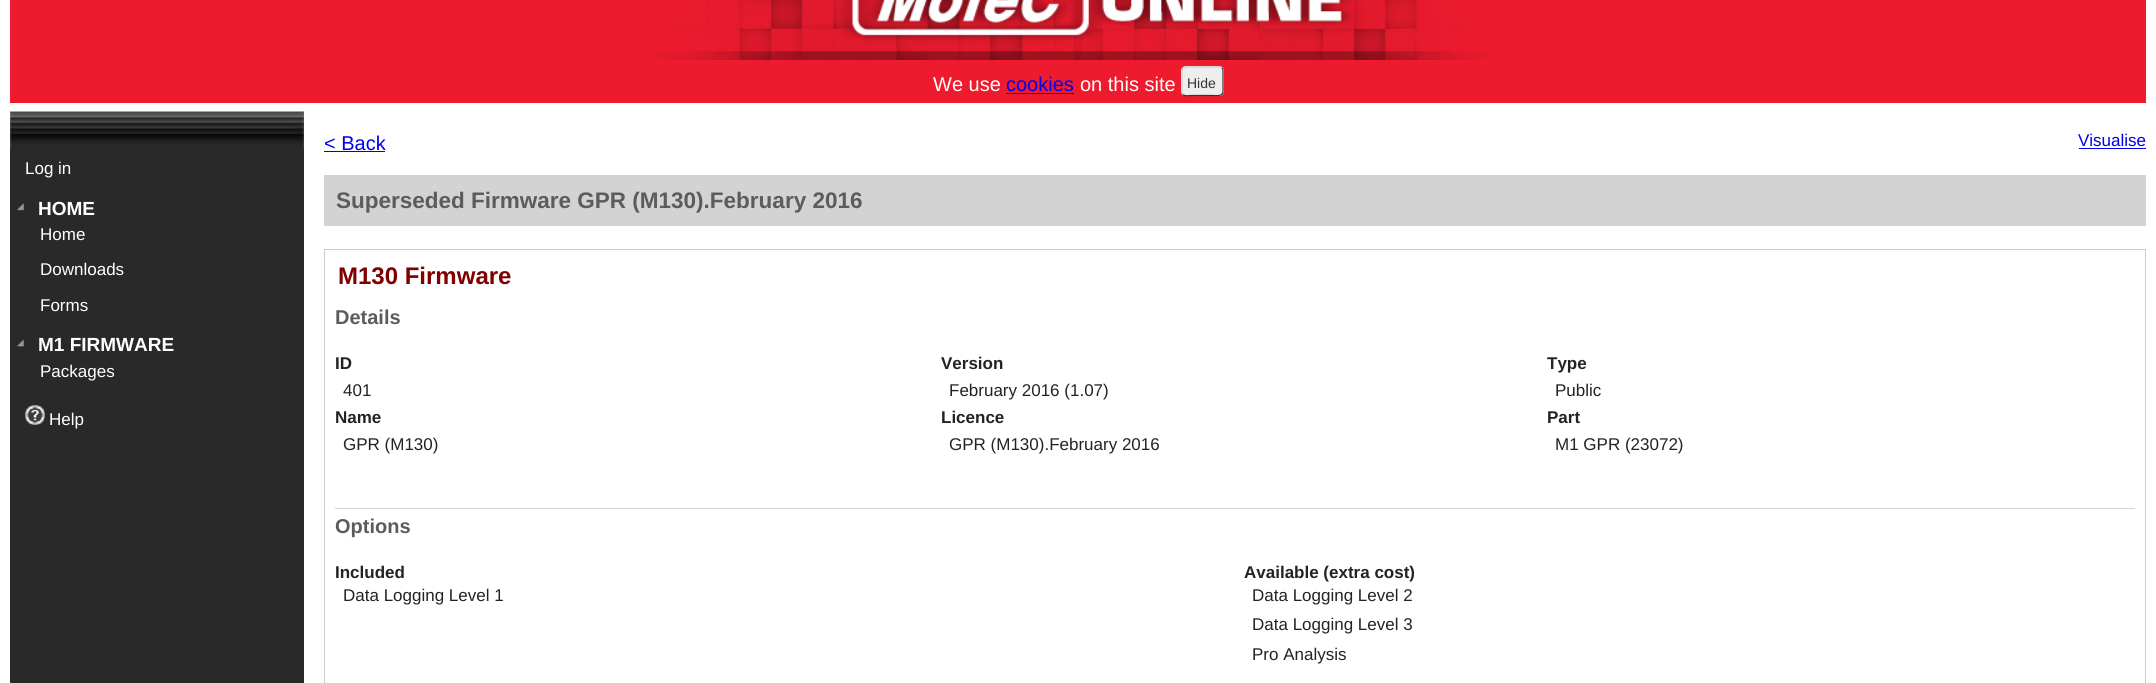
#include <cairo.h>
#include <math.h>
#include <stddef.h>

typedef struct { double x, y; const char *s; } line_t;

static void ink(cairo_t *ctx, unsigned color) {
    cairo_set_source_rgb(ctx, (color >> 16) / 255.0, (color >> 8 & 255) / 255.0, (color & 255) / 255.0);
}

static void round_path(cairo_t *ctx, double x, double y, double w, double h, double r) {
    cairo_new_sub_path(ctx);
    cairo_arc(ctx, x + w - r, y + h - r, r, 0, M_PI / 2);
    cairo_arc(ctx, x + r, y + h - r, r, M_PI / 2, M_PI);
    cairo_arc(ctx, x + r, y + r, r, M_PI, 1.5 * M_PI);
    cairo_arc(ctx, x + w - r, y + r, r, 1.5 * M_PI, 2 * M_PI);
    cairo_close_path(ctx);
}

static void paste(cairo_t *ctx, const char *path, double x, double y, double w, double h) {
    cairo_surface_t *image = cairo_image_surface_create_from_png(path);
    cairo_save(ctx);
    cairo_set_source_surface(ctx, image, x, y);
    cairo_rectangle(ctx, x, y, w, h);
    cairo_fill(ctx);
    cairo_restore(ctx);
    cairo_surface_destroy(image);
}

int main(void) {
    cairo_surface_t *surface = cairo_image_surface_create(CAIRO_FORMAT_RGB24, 2156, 683);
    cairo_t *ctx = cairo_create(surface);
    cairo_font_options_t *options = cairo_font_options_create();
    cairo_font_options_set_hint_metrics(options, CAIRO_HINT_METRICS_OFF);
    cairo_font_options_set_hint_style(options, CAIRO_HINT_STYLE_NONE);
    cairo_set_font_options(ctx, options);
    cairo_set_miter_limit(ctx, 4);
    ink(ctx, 0xFFFFFF);
    cairo_paint(ctx);
    ink(ctx, 0xEE1B2E);
    cairo_rectangle(ctx, 10, 0, 2136, 103);
    cairo_fill(ctx);
    paste(ctx, "media/1.png", 649, 0, 842, 60);
    cairo_select_font_face(ctx, "Liberation Sans", CAIRO_FONT_SLANT_NORMAL, CAIRO_FONT_WEIGHT_NORMAL);
    cairo_set_font_size(ctx, 20);
    ink(ctx, 0xFFFFFF);
    cairo_move_to(ctx, 933, 91);
    cairo_show_text(ctx, "We use");
    ink(ctx, 0x0000EE);
    cairo_move_to(ctx, 1006, 91);
    cairo_show_text(ctx, "cookies");
    cairo_rectangle(ctx, 1006, 93, 68, 1);
    cairo_fill(ctx);
    ink(ctx, 0xFFFFFF);
    cairo_move_to(ctx, 1080, 91);
    cairo_show_text(ctx, "on this site");
    ink(ctx, 0xEEEEEE);
    round_path(ctx, 1181, 66, 43, 30, 5);
    cairo_fill(ctx);
    cairo_new_path(ctx);
    cairo_move_to(ctx, 1222, 68);
    cairo_curve_to(ctx, 1223.5, 70, 1223, 72.5, 1223, 74.5);
    cairo_line_to(ctx, 1223, 92);
    cairo_curve_to(ctx, 1222, 96.5, 1216.5, 95.5, 1213.5, 95.5);
    cairo_line_to(ctx, 1191.5, 95.5);
    cairo_curve_to(ctx, 1189.5, 95.5, 1185.5, 96.5, 1183, 94.5);
    ink(ctx, 0x333333);
    cairo_set_line_width(ctx, 1.2);
    cairo_stroke(ctx);
    cairo_new_path(ctx);
    cairo_move_to(ctx, 1183, 94.5);
    cairo_curve_to(ctx, 1181.5, 92.5, 1182, 90, 1182, 88);
    cairo_line_to(ctx, 1182, 70.5);
    cairo_curve_to(ctx, 1183, 66, 1188.5, 67, 1191.5, 67);
    cairo_line_to(ctx, 1213.5, 67);
    cairo_curve_to(ctx, 1215.5, 67, 1219.5, 66, 1222, 68);
    ink(ctx, 0xCCCCCC);
    cairo_stroke(ctx);
    cairo_set_font_size(ctx, 14);
    ink(ctx, 0x333333);
    cairo_move_to(ctx, 1187, 88);
    cairo_show_text(ctx, "Hide");
    ink(ctx, 0x29292A);
    cairo_rectangle(ctx, 10, 111, 294, 572);
    cairo_fill(ctx);
    paste(ctx, "media/2.png", 10, 111, 294, 38);
    cairo_set_font_size(ctx, 17);
    ink(ctx, 0xFFFFFF);
    cairo_move_to(ctx, 25, 174);
    cairo_show_text(ctx, "Log in");
    paste(ctx, "media/3.png", 17, 203, 7, 8);
    cairo_select_font_face(ctx, "Liberation Sans", CAIRO_FONT_SLANT_NORMAL, CAIRO_FONT_WEIGHT_BOLD);
    cairo_set_font_size(ctx, 19);
    cairo_move_to(ctx, 38, 215);
    cairo_show_text(ctx, "HOME");
    cairo_select_font_face(ctx, "Liberation Sans", CAIRO_FONT_SLANT_NORMAL, CAIRO_FONT_WEIGHT_NORMAL);
    cairo_set_font_size(ctx, 17);
    {
        static const line_t items[] = {
            {40, 240, "Home"},
            {40, 275, "Downloads"},
            {40, 311, "Forms"},
        };
        for (size_t i = 0; i < sizeof items / sizeof *items; i++) {
            cairo_move_to(ctx, items[i].x, items[i].y);
            cairo_show_text(ctx, items[i].s);
        }
    }
    paste(ctx, "media/4.png", 17, 339, 7, 8);
    cairo_select_font_face(ctx, "Liberation Sans", CAIRO_FONT_SLANT_NORMAL, CAIRO_FONT_WEIGHT_BOLD);
    cairo_set_font_size(ctx, 19);
    cairo_move_to(ctx, 38, 351);
    cairo_show_text(ctx, "M1 FIRMWARE");
    cairo_select_font_face(ctx, "Liberation Sans", CAIRO_FONT_SLANT_NORMAL, CAIRO_FONT_WEIGHT_NORMAL);
    cairo_set_font_size(ctx, 17);
    cairo_move_to(ctx, 40, 377);
    cairo_show_text(ctx, "Packages");
    paste(ctx, "media/5.png", 25, 405, 20, 20);
    cairo_move_to(ctx, 49, 425);
    cairo_show_text(ctx, "Help");
    cairo_set_font_size(ctx, 20);
    ink(ctx, 0x0000EE);
    cairo_move_to(ctx, 324, 150);
    cairo_show_text(ctx, "< Back");
    cairo_rectangle(ctx, 324, 151, 61, 1);
    cairo_fill(ctx);
    cairo_set_font_size(ctx, 17);
    cairo_move_to(ctx, 2078, 146);
    cairo_show_text(ctx, "Visualise");
    cairo_rectangle(ctx, 2079, 148, 67, 1);
    cairo_fill(ctx);
    ink(ctx, 0xD3D3D3);
    cairo_rectangle(ctx, 324, 175, 1822, 51);
    cairo_fill(ctx);
    cairo_select_font_face(ctx, "Liberation Sans", CAIRO_FONT_SLANT_NORMAL, CAIRO_FONT_WEIGHT_BOLD);
    cairo_set_font_size(ctx, 22.5);
    ink(ctx, 0x5C5C5C);
    cairo_move_to(ctx, 336, 208);
    cairo_show_text(ctx, "Superseded Firmware GPR (M130).February 2016");
    cairo_rectangle(ctx, 324.5, 249.5, 1821, 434);
    ink(ctx, 0xCCCCCC);
    cairo_set_line_width(ctx, 1);
    cairo_stroke(ctx);
    cairo_set_font_size(ctx, 24);
    ink(ctx, 0x800000);
    cairo_move_to(ctx, 338, 284);
    cairo_show_text(ctx, "M130 Firmware");
    cairo_set_font_size(ctx, 20);
    ink(ctx, 0x5C5C5C);
    cairo_move_to(ctx, 335, 324);
    cairo_show_text(ctx, "Details");
    cairo_set_font_size(ctx, 17);
    ink(ctx, 0x232323);
    cairo_move_to(ctx, 335, 369);
    cairo_show_text(ctx, "ID");
    cairo_select_font_face(ctx, "Liberation Sans", CAIRO_FONT_SLANT_NORMAL, CAIRO_FONT_WEIGHT_NORMAL);
    cairo_move_to(ctx, 343, 396);
    cairo_show_text(ctx, "401");
    cairo_select_font_face(ctx, "Liberation Sans", CAIRO_FONT_SLANT_NORMAL, CAIRO_FONT_WEIGHT_BOLD);
    cairo_move_to(ctx, 941, 369);
    cairo_show_text(ctx, "Version");
    cairo_select_font_face(ctx, "Liberation Sans", CAIRO_FONT_SLANT_NORMAL, CAIRO_FONT_WEIGHT_NORMAL);
    cairo_move_to(ctx, 949, 396);
    cairo_show_text(ctx, "February 2016 (1.07)");
    cairo_select_font_face(ctx, "Liberation Sans", CAIRO_FONT_SLANT_NORMAL, CAIRO_FONT_WEIGHT_BOLD);
    cairo_move_to(ctx, 1547, 369);
    cairo_show_text(ctx, "Type");
    cairo_select_font_face(ctx, "Liberation Sans", CAIRO_FONT_SLANT_NORMAL, CAIRO_FONT_WEIGHT_NORMAL);
    cairo_move_to(ctx, 1555, 396);
    cairo_show_text(ctx, "Public");
    cairo_select_font_face(ctx, "Liberation Sans", CAIRO_FONT_SLANT_NORMAL, CAIRO_FONT_WEIGHT_BOLD);
    cairo_move_to(ctx, 335, 423);
    cairo_show_text(ctx, "Name");
    cairo_select_font_face(ctx, "Liberation Sans", CAIRO_FONT_SLANT_NORMAL, CAIRO_FONT_WEIGHT_NORMAL);
    cairo_move_to(ctx, 343, 450);
    cairo_show_text(ctx, "GPR (M130)");
    cairo_select_font_face(ctx, "Liberation Sans", CAIRO_FONT_SLANT_NORMAL, CAIRO_FONT_WEIGHT_BOLD);
    cairo_move_to(ctx, 941, 423);
    cairo_show_text(ctx, "Licence");
    cairo_select_font_face(ctx, "Liberation Sans", CAIRO_FONT_SLANT_NORMAL, CAIRO_FONT_WEIGHT_NORMAL);
    cairo_move_to(ctx, 949, 450);
    cairo_show_text(ctx, "GPR (M130).February 2016");
    cairo_select_font_face(ctx, "Liberation Sans", CAIRO_FONT_SLANT_NORMAL, CAIRO_FONT_WEIGHT_BOLD);
    cairo_move_to(ctx, 1547, 423);
    cairo_show_text(ctx, "Part");
    cairo_select_font_face(ctx, "Liberation Sans", CAIRO_FONT_SLANT_NORMAL, CAIRO_FONT_WEIGHT_NORMAL);
    cairo_move_to(ctx, 1555, 450);
    cairo_show_text(ctx, "M1 GPR (23072)");
    ink(ctx, 0xD3D3D3);
    cairo_rectangle(ctx, 335, 508, 1800, 1);
    cairo_fill(ctx);
    cairo_select_font_face(ctx, "Liberation Sans", CAIRO_FONT_SLANT_NORMAL, CAIRO_FONT_WEIGHT_BOLD);
    cairo_set_font_size(ctx, 20);
    ink(ctx, 0x5C5C5C);
    cairo_move_to(ctx, 335, 533);
    cairo_show_text(ctx, "Options");
    cairo_set_font_size(ctx, 17);
    ink(ctx, 0x232323);
    cairo_move_to(ctx, 335, 578);
    cairo_show_text(ctx, "Included");
    cairo_select_font_face(ctx, "Liberation Sans", CAIRO_FONT_SLANT_NORMAL, CAIRO_FONT_WEIGHT_NORMAL);
    cairo_move_to(ctx, 343, 601);
    cairo_show_text(ctx, "Data Logging Level 1");
    cairo_select_font_face(ctx, "Liberation Sans", CAIRO_FONT_SLANT_NORMAL, CAIRO_FONT_WEIGHT_BOLD);
    cairo_move_to(ctx, 1244, 578);
    cairo_show_text(ctx, "Available (extra cost)");
    cairo_select_font_face(ctx, "Liberation Sans", CAIRO_FONT_SLANT_NORMAL, CAIRO_FONT_WEIGHT_NORMAL);
    {
        static const line_t items[] = {
            {1252, 601, "Data Logging Level 2"},
            {1252, 630, "Data Logging Level 3"},
            {1252, 660, "Pro Analysis"},
        };
        for (size_t i = 0; i < sizeof items / sizeof *items; i++) {
            cairo_move_to(ctx, items[i].x, items[i].y);
            cairo_show_text(ctx, items[i].s);
        }
    }
    cairo_surface_write_to_png(surface, "image.png");
    cairo_font_options_destroy(options);
    cairo_destroy(ctx);
    cairo_surface_destroy(surface);
    return 0;
}
